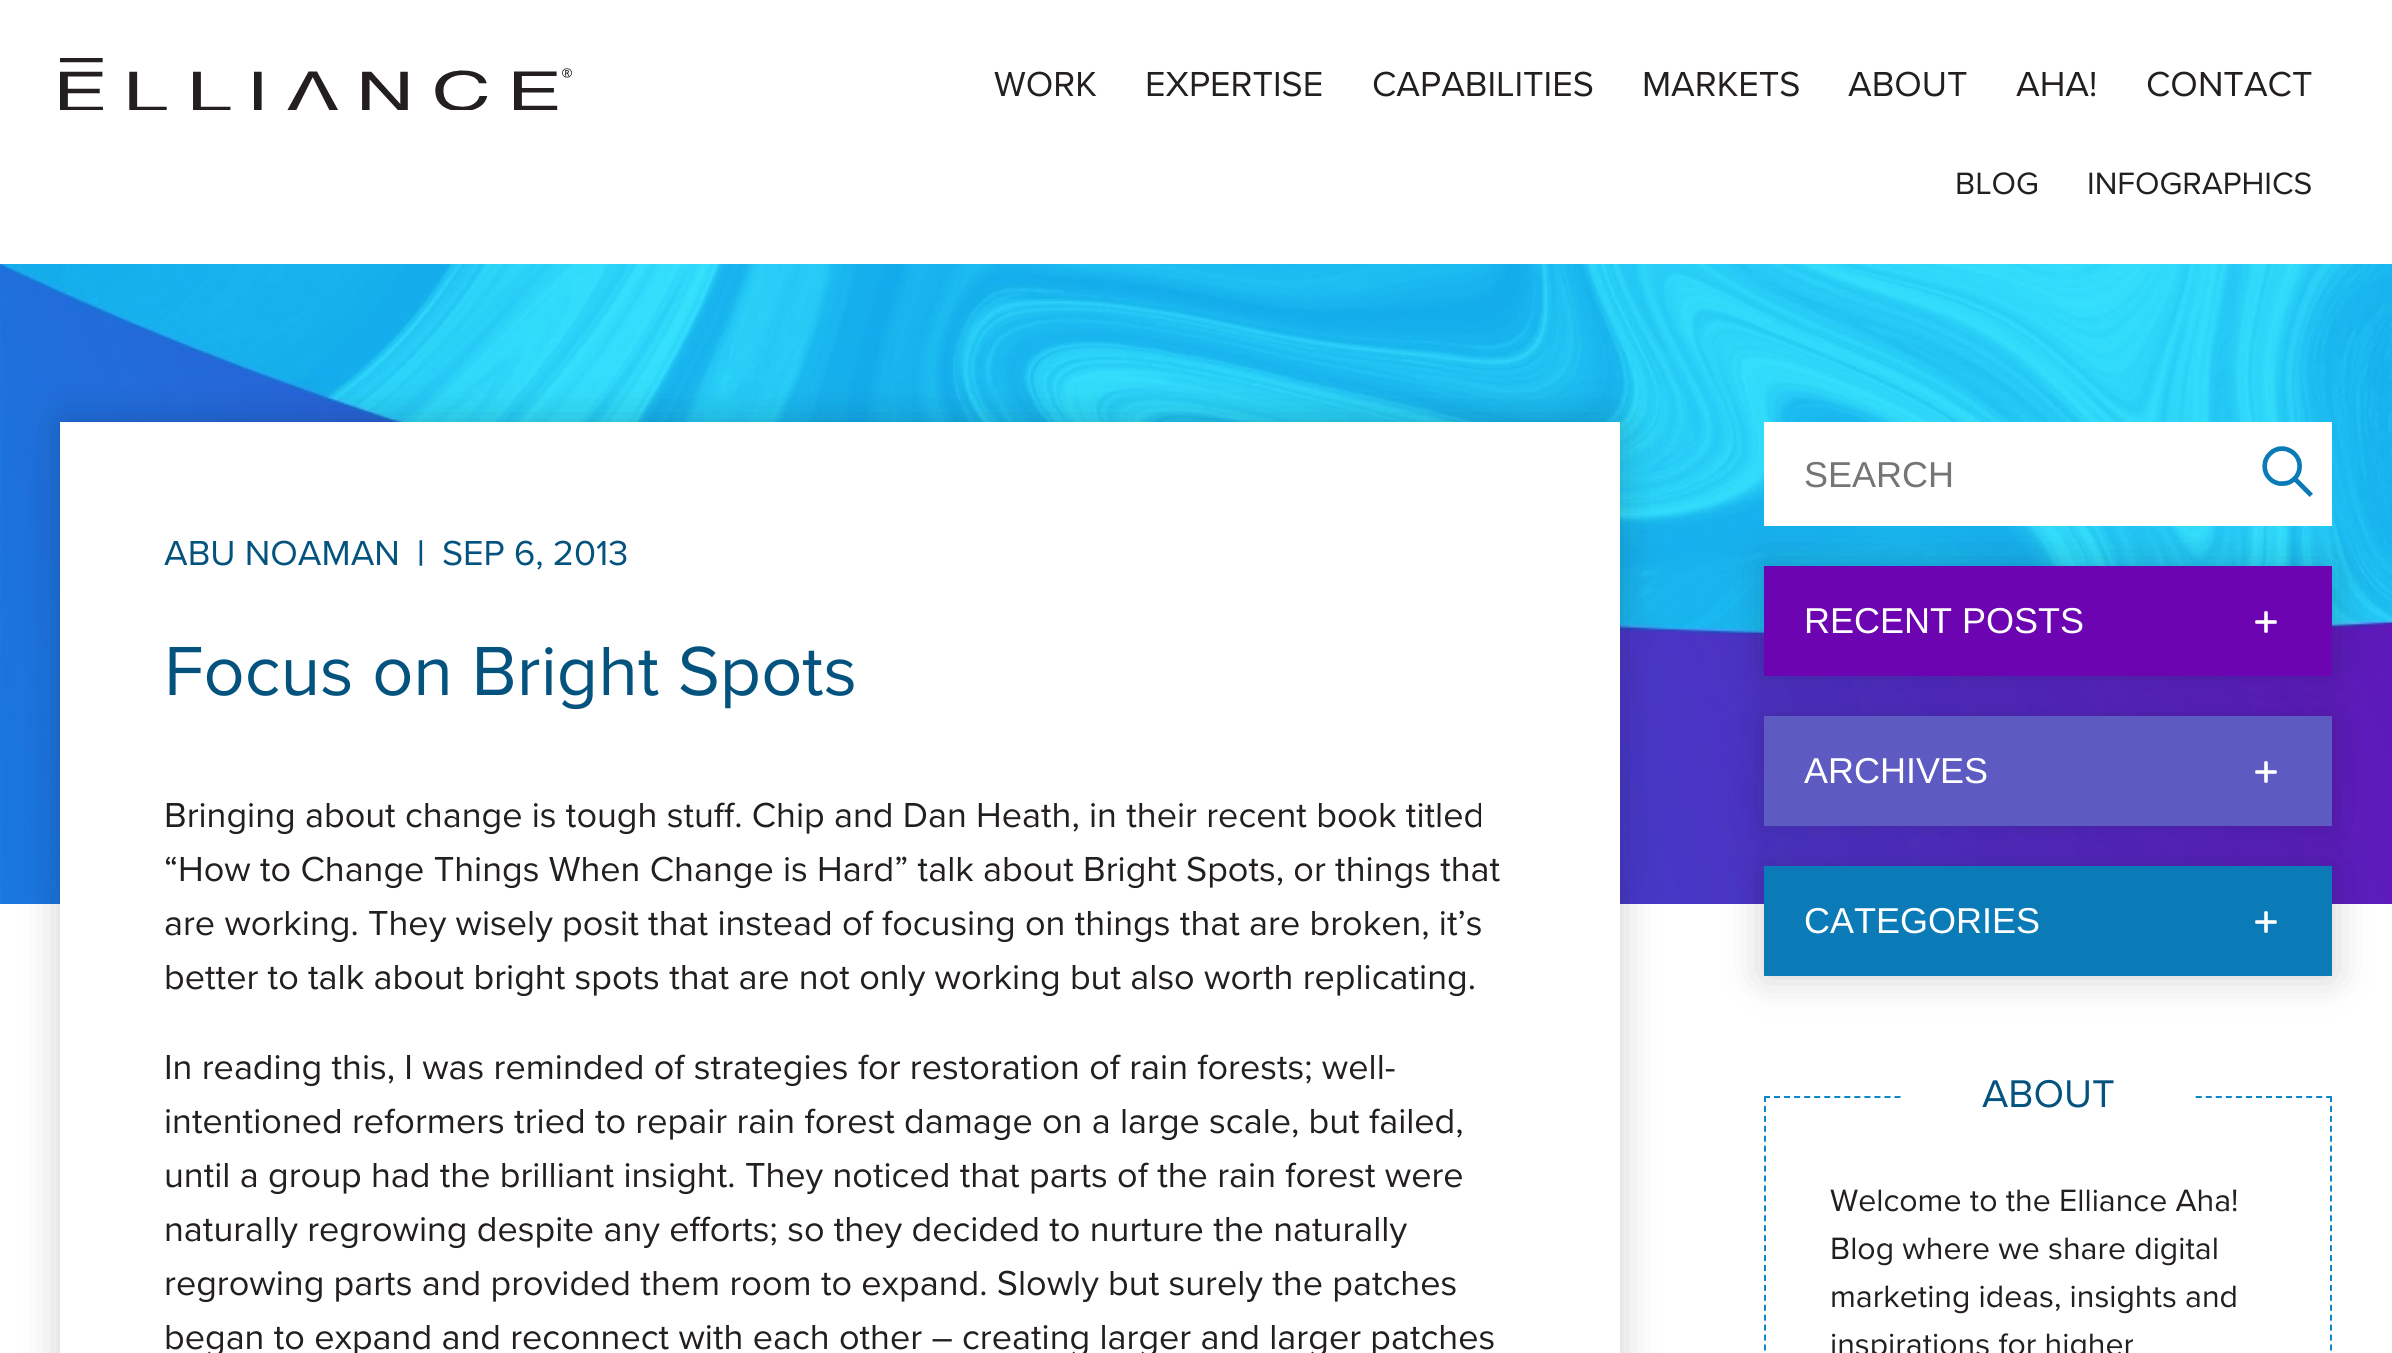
#include <cairo.h>
#include <math.h>
#include <stddef.h>

typedef struct { double x, y; const char *s; } line_t;

static void ink(cairo_t *ctx, unsigned color) {
    cairo_set_source_rgb(ctx, (color >> 16) / 255.0, (color >> 8 & 255) / 255.0, (color & 255) / 255.0);
}

static void round_path(cairo_t *ctx, double x, double y, double w, double h, double r) {
    cairo_new_sub_path(ctx);
    cairo_arc(ctx, x + w - r, y + h - r, r, 0, M_PI / 2);
    cairo_arc(ctx, x + r, y + h - r, r, M_PI / 2, M_PI);
    cairo_arc(ctx, x + r, y + r, r, M_PI, 1.5 * M_PI);
    cairo_arc(ctx, x + w - r, y + r, r, 1.5 * M_PI, 2 * M_PI);
    cairo_close_path(ctx);
}

static void blur_box(cairo_t *ctx, double x, double y, double w, double h, double r, double blur, double alpha) {
    cairo_push_group_with_content(ctx, CAIRO_CONTENT_ALPHA);
    cairo_set_operator(ctx, CAIRO_OPERATOR_SOURCE);
    for (int i = 15; i >= -15 && fmin(w, h) + blur * i / 3 > 0; i -= 2) {
        double e = blur * i / 6;
        cairo_set_source_rgba(ctx, 0, 0, 0, alpha * erfc((i - 1) / 8.5) / 2);
        round_path(ctx, x - e, y - e, w + 2 * e, h + 2 * e, fmax(0, fmin(r + e + blur * .6, fmin(w, h) / 2 + e)));
        cairo_fill(ctx);
    }
    cairo_pattern_t *soft = cairo_pop_group(ctx);
    cairo_mask(ctx, soft);
    cairo_pattern_destroy(soft);
}

static void paste(cairo_t *ctx, const char *path, double x, double y, double w, double h) {
    cairo_surface_t *image = cairo_image_surface_create_from_png(path);
    cairo_save(ctx);
    cairo_set_source_surface(ctx, image, x, y);
    cairo_rectangle(ctx, x, y, w, h);
    cairo_fill(ctx);
    cairo_restore(ctx);
    cairo_surface_destroy(image);
}

int main(void) {
    cairo_surface_t *surface = cairo_image_surface_create(CAIRO_FORMAT_RGB24, 2392, 1353);
    cairo_t *ctx = cairo_create(surface);
    cairo_font_options_t *options = cairo_font_options_create();
    cairo_font_options_set_hint_metrics(options, CAIRO_HINT_METRICS_OFF);
    cairo_font_options_set_hint_style(options, CAIRO_HINT_STYLE_NONE);
    cairo_set_font_options(ctx, options);
    cairo_set_miter_limit(ctx, 4);
    ink(ctx, 0xFFFFFF);
    cairo_paint(ctx);
    paste(ctx, "media/1.png", 60, 58, 512, 52);
    cairo_select_font_face(ctx, "Proxima Nova", CAIRO_FONT_SLANT_NORMAL, CAIRO_FONT_WEIGHT_NORMAL);
    cairo_set_font_size(ctx, 36);
    ink(ctx, 0x231F20);
    {
        static const line_t items[] = {
            {994, 96, "WORK"},
            {1145, 96, "EXPERTISE"},
            {1372, 96, "CAPABILITIES"},
            {1642, 96, "MARKETS"},
            {1848, 96, "ABOUT"},
            {2016, 96, "AHA!"},
            {2146, 96, "CONTACT"},
        };
        for (size_t i = 0; i < sizeof items / sizeof *items; i++) {
            cairo_move_to(ctx, items[i].x, items[i].y);
            cairo_show_text(ctx, items[i].s);
        }
    }
    cairo_set_font_size(ctx, 32);
    cairo_move_to(ctx, 1955, 194);
    cairo_show_text(ctx, "BLOG");
    cairo_move_to(ctx, 2087, 194);
    cairo_show_text(ctx, "INFOGRAPHICS");
    paste(ctx, "media/2.png", 0, 264, 2392, 640);
    ink(ctx, 0x000000);
    blur_box(ctx, 60, 422, 1560, 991, 0, 20, 0.2);
    ink(ctx, 0xFFFFFF);
    cairo_rectangle(ctx, 60, 422, 1560, 931);
    cairo_fill(ctx);
    cairo_set_font_size(ctx, 36);
    ink(ctx, 0x04537F);
    cairo_move_to(ctx, 164, 565);
    cairo_show_text(ctx, "ABU NOAMAN");
    cairo_select_font_face(ctx, "Proxima Nova SemiBold", CAIRO_FONT_SLANT_NORMAL, CAIRO_FONT_WEIGHT_NORMAL);
    cairo_move_to(ctx, 417, 565);
    cairo_show_text(ctx, "|");
    cairo_select_font_face(ctx, "Proxima Nova", CAIRO_FONT_SLANT_NORMAL, CAIRO_FONT_WEIGHT_NORMAL);
    cairo_move_to(ctx, 442, 565);
    cairo_show_text(ctx, "SEP 6, 2013");
    cairo_set_font_size(ctx, 72);
    cairo_move_to(ctx, 164, 695);
    cairo_show_text(ctx, "Focus on Bright Spots");
    cairo_set_font_size(ctx, 36);
    ink(ctx, 0x231F20);
    {
        static const line_t items[] = {
            {164, 827, "Bringing about change is tough stuff. Chip and Dan Heath, in their recent book titled"},
            {164, 881, "“How to Change Things When Change is Hard” talk about Bright Spots, or things that"},
            {164, 935, "are working. They wisely posit that instead of focusing on things that are broken, it’s"},
            {164, 989, "better to talk about bright spots that are not only working but also worth replicating."},
            {164, 1079, "In reading this, I was reminded of strategies for restoration of rain forests; well-"},
            {164, 1133, "intentioned reformers tried to repair rain forest damage on a large scale, but failed,"},
            {164, 1187, "until a group had the brilliant insight. They noticed that parts of the rain forest were"},
            {164, 1241, "naturally regrowing despite any efforts; so they decided to nurture the naturally"},
            {164, 1295, "regrowing parts and provided them room to expand. Slowly but surely the patches"},
            {164, 1349, "began to expand and reconnect with each other – creating larger and larger patches"},
        };
        for (size_t i = 0; i < sizeof items / sizeof *items; i++) {
            cairo_move_to(ctx, items[i].x, items[i].y);
            cairo_show_text(ctx, items[i].s);
        }
    }
    ink(ctx, 0xFFFFFF);
    cairo_rectangle(ctx, 1764, 422, 568, 104);
    cairo_fill(ctx);
    cairo_select_font_face(ctx, "Liberation Sans", CAIRO_FONT_SLANT_NORMAL, CAIRO_FONT_WEIGHT_NORMAL);
    ink(ctx, 0x757575);
    cairo_move_to(ctx, 1804, 487);
    cairo_show_text(ctx, "SEARCH");
    paste(ctx, "media/3.png", 2262, 446, 51, 51);
    ink(ctx, 0x000000);
    blur_box(ctx, 1764, 566, 568, 110, 0, 20, 0.2);
    blur_box(ctx, 1764, 716, 568, 110, 0, 20, 0.2);
    ink(ctx, 0x6D04B1);
    cairo_rectangle(ctx, 1764, 566, 568, 110);
    cairo_fill(ctx);
    ink(ctx, 0xFFFFFF);
    cairo_move_to(ctx, 1804, 633);
    cairo_show_text(ctx, "RECENT POSTS");
    paste(ctx, "media/4.png", 2255, 611, 22, 22);
    ink(ctx, 0x000000);
    blur_box(ctx, 1764, 866, 568, 110, 0, 20, 0.2);
    ink(ctx, 0x5D5BC1);
    cairo_rectangle(ctx, 1764, 716, 568, 110);
    cairo_fill(ctx);
    ink(ctx, 0xFFFFFF);
    cairo_move_to(ctx, 1804, 783);
    cairo_show_text(ctx, "ARCHIVES");
    paste(ctx, "media/5.png", 2255, 761, 22, 22);
    ink(ctx, 0x0B7BB7);
    cairo_rectangle(ctx, 1764, 866, 568, 110);
    cairo_fill(ctx);
    ink(ctx, 0xFFFFFF);
    cairo_move_to(ctx, 1804, 933);
    cairo_show_text(ctx, "CATEGORIES");
    paste(ctx, "media/6.png", 2255, 911, 22, 22);
    cairo_new_path(ctx);
    cairo_move_to(ctx, 1764, 1097);
    cairo_line_to(ctx, 2332, 1097);
    ink(ctx, 0x0C87CA);
    cairo_set_dash(ctx, (double[]){6, 4.04}, 2, 0);
    cairo_stroke(ctx);
    cairo_new_path(ctx);
    cairo_move_to(ctx, 2331, 1096);
    cairo_line_to(ctx, 2331, 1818);
    cairo_set_dash(ctx, (double[]){6, 3.94}, 2, 0);
    cairo_stroke(ctx);
    cairo_new_path(ctx);
    cairo_move_to(ctx, 1765, 1096);
    cairo_line_to(ctx, 1765, 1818);
    cairo_stroke(ctx);
    ink(ctx, 0xFFFFFF);
    cairo_rectangle(ctx, 1904, 1096, 288, 2);
    cairo_fill(ctx);
    cairo_select_font_face(ctx, "Proxima Nova", CAIRO_FONT_SLANT_NORMAL, CAIRO_FONT_WEIGHT_NORMAL);
    cairo_set_font_size(ctx, 40);
    ink(ctx, 0x04537F);
    cairo_move_to(ctx, 1982, 1107);
    cairo_show_text(ctx, "ABOUT");
    cairo_set_font_size(ctx, 32);
    ink(ctx, 0x231F20);
    {
        static const line_t items[] = {
            {1830, 1211, "Welcome to the Elliance Aha!"},
            {1830, 1259, "Blog where we share digital"},
            {1830, 1307, "marketing ideas, insights and"},
            {1830, 1355, "inspirations for higher"},
        };
        for (size_t i = 0; i < sizeof items / sizeof *items; i++) {
            cairo_move_to(ctx, items[i].x, items[i].y);
            cairo_show_text(ctx, items[i].s);
        }
    }
    cairo_surface_write_to_png(surface, "image.png");
    cairo_font_options_destroy(options);
    cairo_destroy(ctx);
    cairo_surface_destroy(surface);
    return 0;
}
